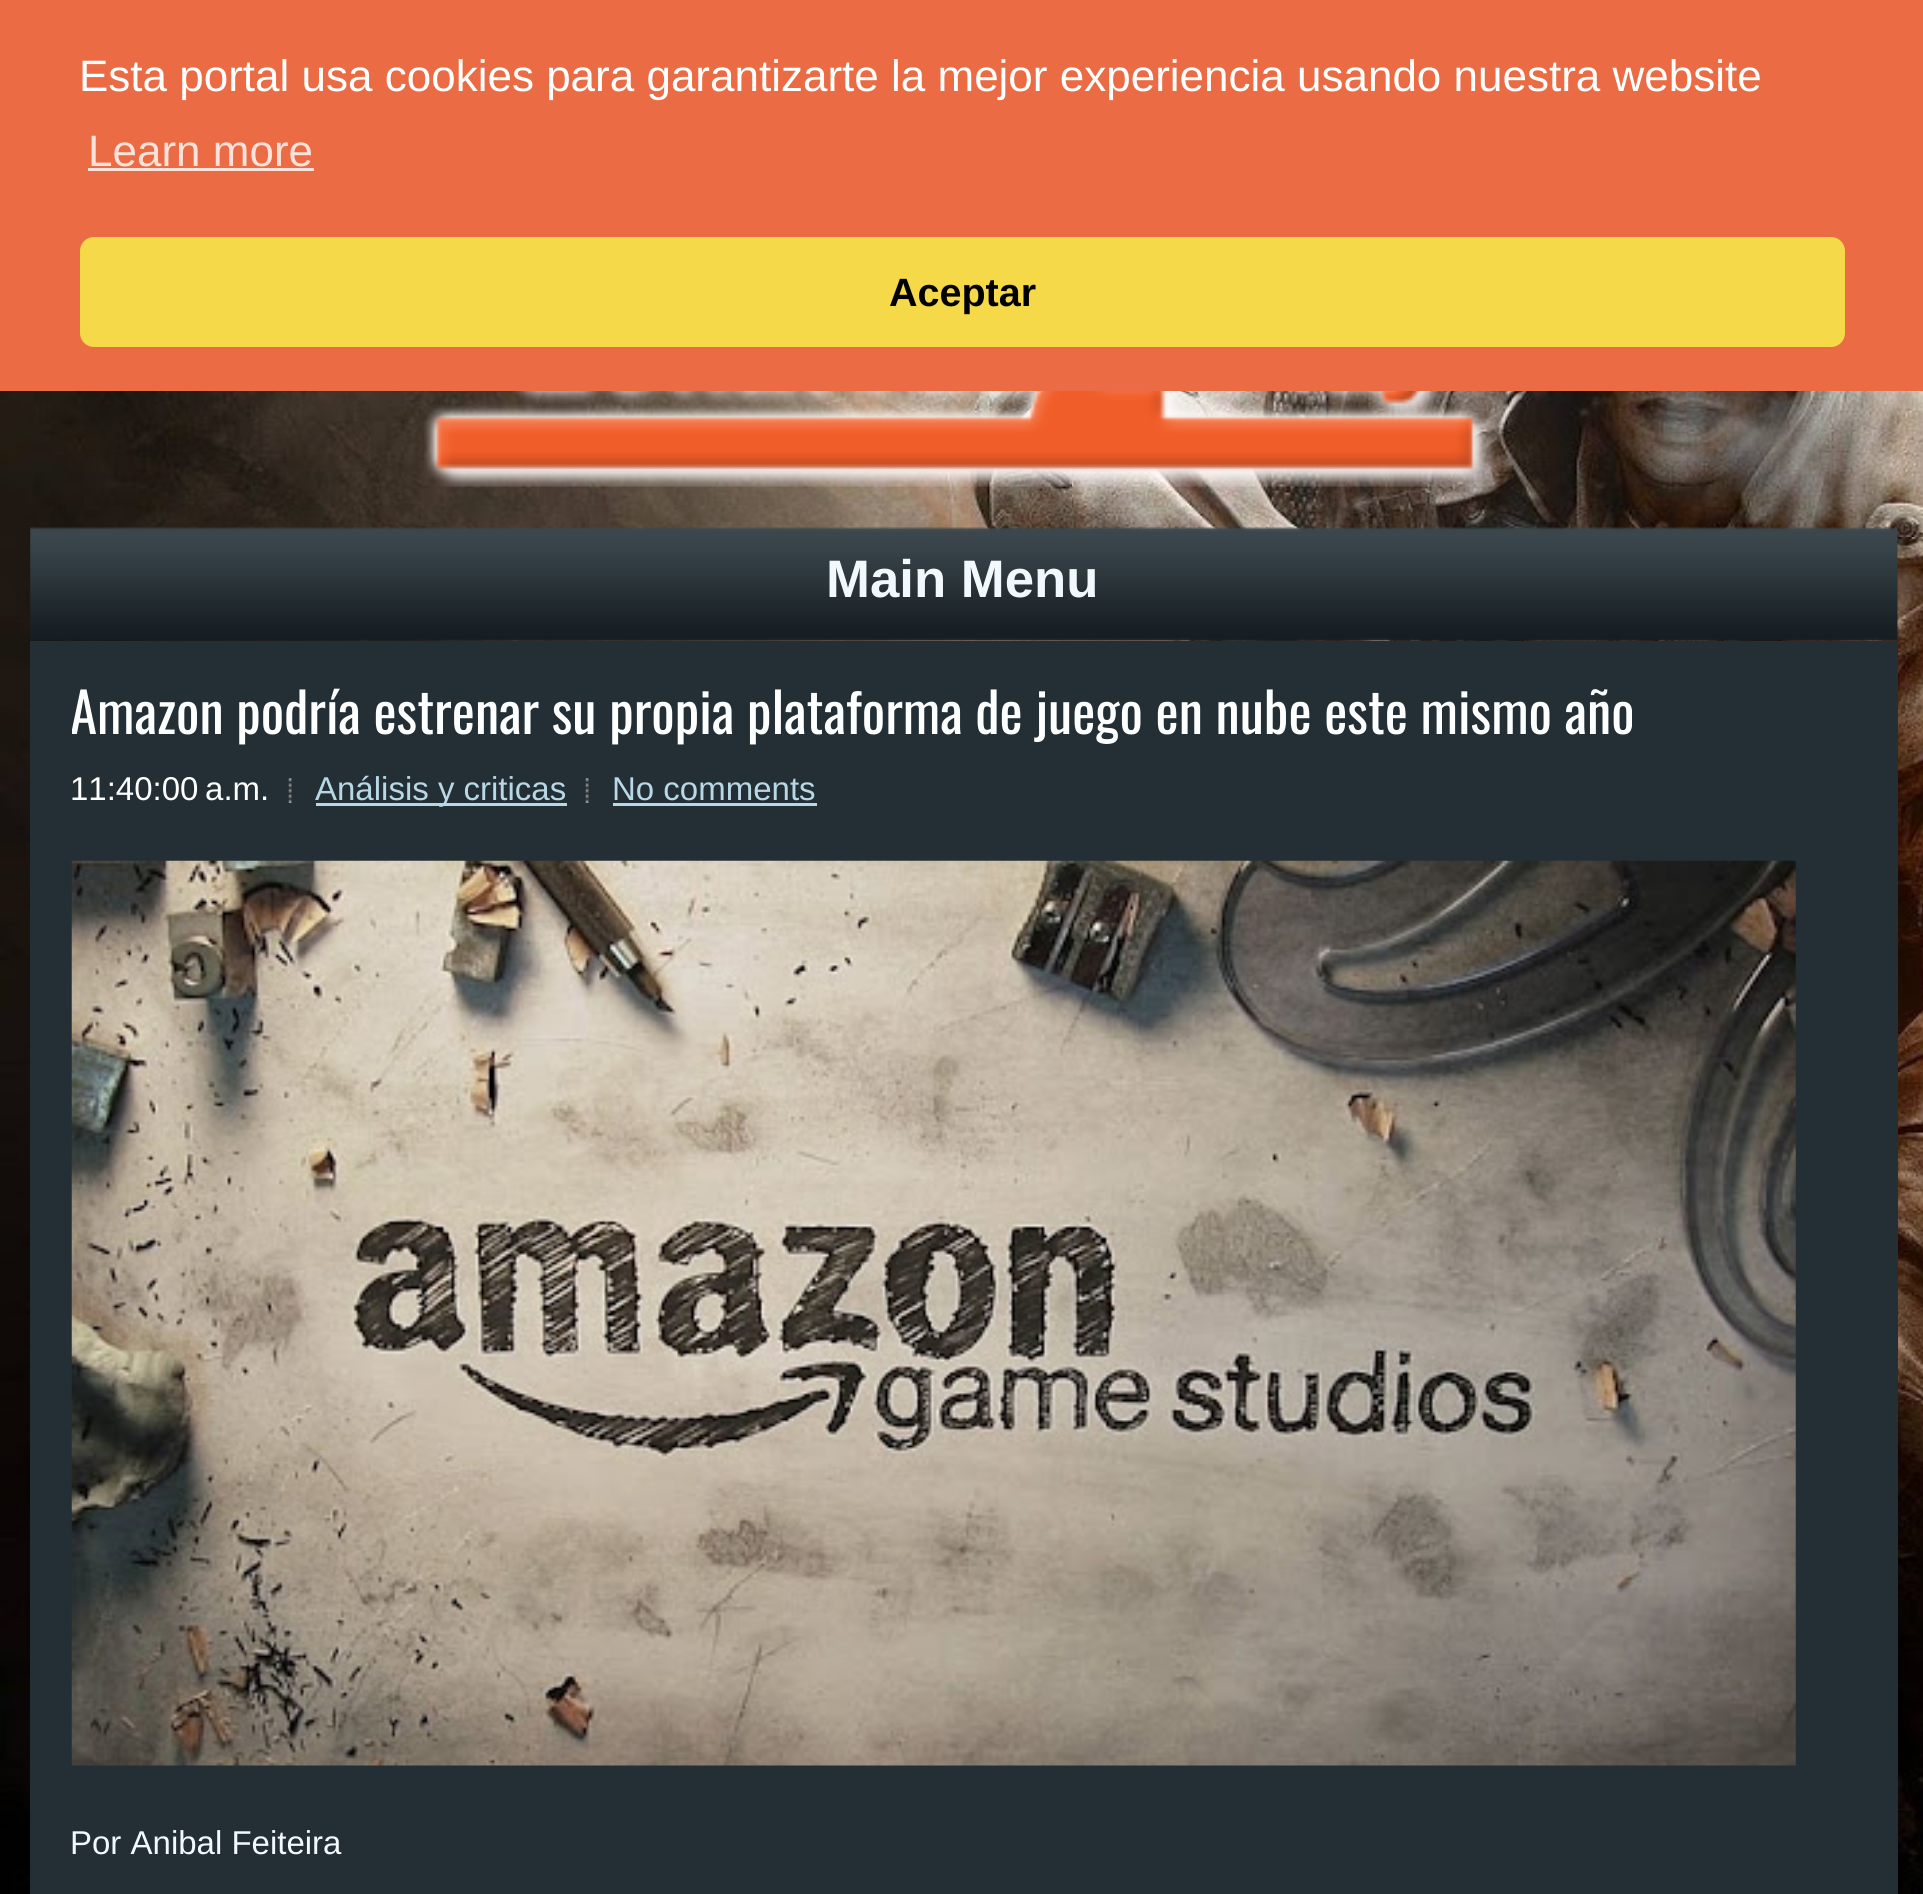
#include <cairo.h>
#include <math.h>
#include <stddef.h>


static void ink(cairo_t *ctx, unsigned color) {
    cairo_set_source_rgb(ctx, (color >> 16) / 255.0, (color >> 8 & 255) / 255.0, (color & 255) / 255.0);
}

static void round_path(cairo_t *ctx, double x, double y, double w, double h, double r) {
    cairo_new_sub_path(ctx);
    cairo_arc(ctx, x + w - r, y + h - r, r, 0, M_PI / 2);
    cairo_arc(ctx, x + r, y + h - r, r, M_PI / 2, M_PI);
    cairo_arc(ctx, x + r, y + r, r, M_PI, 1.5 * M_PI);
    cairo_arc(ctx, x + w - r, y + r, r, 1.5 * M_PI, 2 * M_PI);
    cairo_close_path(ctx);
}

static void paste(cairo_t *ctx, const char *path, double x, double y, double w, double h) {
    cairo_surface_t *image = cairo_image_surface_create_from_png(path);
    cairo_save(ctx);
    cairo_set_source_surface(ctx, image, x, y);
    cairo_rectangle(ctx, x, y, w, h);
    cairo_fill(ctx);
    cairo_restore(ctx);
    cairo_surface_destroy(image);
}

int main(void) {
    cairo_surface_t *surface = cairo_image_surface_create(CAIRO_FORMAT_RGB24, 1923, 1894);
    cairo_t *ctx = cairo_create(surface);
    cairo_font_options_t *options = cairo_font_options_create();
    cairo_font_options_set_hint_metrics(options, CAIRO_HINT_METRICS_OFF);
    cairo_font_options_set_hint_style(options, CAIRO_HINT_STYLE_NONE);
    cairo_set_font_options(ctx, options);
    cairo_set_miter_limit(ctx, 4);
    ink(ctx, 0xFFFFFF);
    cairo_paint(ctx);
    paste(ctx, "media/1.png", 0, 391, 1923, 1503);
    ink(ctx, 0xEB6C44);
    cairo_rectangle(ctx, 0, 0, 1923, 391);
    cairo_fill(ctx);
    cairo_select_font_face(ctx, "Liberation Sans", CAIRO_FONT_SLANT_NORMAL, CAIRO_FONT_WEIGHT_NORMAL);
    cairo_set_font_size(ctx, 44);
    ink(ctx, 0xFEFFFF);
    cairo_move_to(ctx, 79, 91);
    cairo_show_text(ctx, "Esta portal usa cookies para garantizarte la mejor experiencia usando nuestra website");
    ink(ctx, 0xFBE2DA);
    cairo_move_to(ctx, 88, 166);
    cairo_show_text(ctx, "Learn more");
    cairo_rectangle(ctx, 88, 168, 226, 3);
    cairo_fill(ctx);
    ink(ctx, 0xF5D948);
    round_path(ctx, 80, 237, 1765, 110, 14);
    cairo_fill(ctx);
    cairo_select_font_face(ctx, "Liberation Sans", CAIRO_FONT_SLANT_NORMAL, CAIRO_FONT_WEIGHT_BOLD);
    cairo_set_font_size(ctx, 39.5);
    ink(ctx, 0x000000);
    cairo_move_to(ctx, 889, 306);
    cairo_show_text(ctx, "Aceptar");
    paste(ctx, "media/2.png", 424, 391, 1069, 96);
    paste(ctx, "media/3.png", 30, 527, 1868, 114);
    cairo_set_font_size(ctx, 52.75);
    ink(ctx, 0xF2F9FC);
    cairo_move_to(ctx, 826, 597);
    cairo_show_text(ctx, "Main Menu");
    ink(ctx, 0x242F35);
    cairo_rectangle(ctx, 30, 641, 1868, 1253);
    cairo_fill(ctx);
    cairo_save(ctx);
    cairo_rectangle(ctx, 72, 682, 1784, 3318);
    cairo_clip(ctx);
    cairo_select_font_face(ctx, "Oswald", CAIRO_FONT_SLANT_NORMAL, CAIRO_FONT_WEIGHT_NORMAL);
    cairo_set_font_size(ctx, 55);
    ink(ctx, 0xFEFFFF);
    cairo_move_to(ctx, 70, 734);
    cairo_show_text(ctx, "Amazon podría estrenar su propia plataforma de juego en nube este mismo año");
    cairo_restore(ctx);
    cairo_select_font_face(ctx, "Liberation Sans", CAIRO_FONT_SLANT_NORMAL, CAIRO_FONT_WEIGHT_NORMAL);
    cairo_set_font_size(ctx, 33);
    ink(ctx, 0xFEFFFF);
    cairo_move_to(ctx, 70, 800);
    cairo_show_text(ctx, "11:40:00 a.m.");
    paste(ctx, "media/4.png", 288, 778, 4, 25);
    ink(ctx, 0xB9D8E6);
    cairo_rectangle(ctx, 316, 803, 251, 3);
    cairo_fill(ctx);
    cairo_move_to(ctx, 315, 800);
    cairo_show_text(ctx, "Análisis y criticas");
    paste(ctx, "media/4.png", 585, 778, 4, 25);
    cairo_move_to(ctx, 612, 800);
    cairo_show_text(ctx, "No comments");
    cairo_rectangle(ctx, 613, 803, 204, 3);
    cairo_fill(ctx);
    paste(ctx, "media/5.png", 71, 860, 1725, 906);
    ink(ctx, 0xF2F9FC);
    cairo_move_to(ctx, 70, 1854);
    cairo_show_text(ctx, "Por Anibal Feiteira");
    cairo_surface_write_to_png(surface, "image.png");
    cairo_font_options_destroy(options);
    cairo_destroy(ctx);
    cairo_surface_destroy(surface);
    return 0;
}
